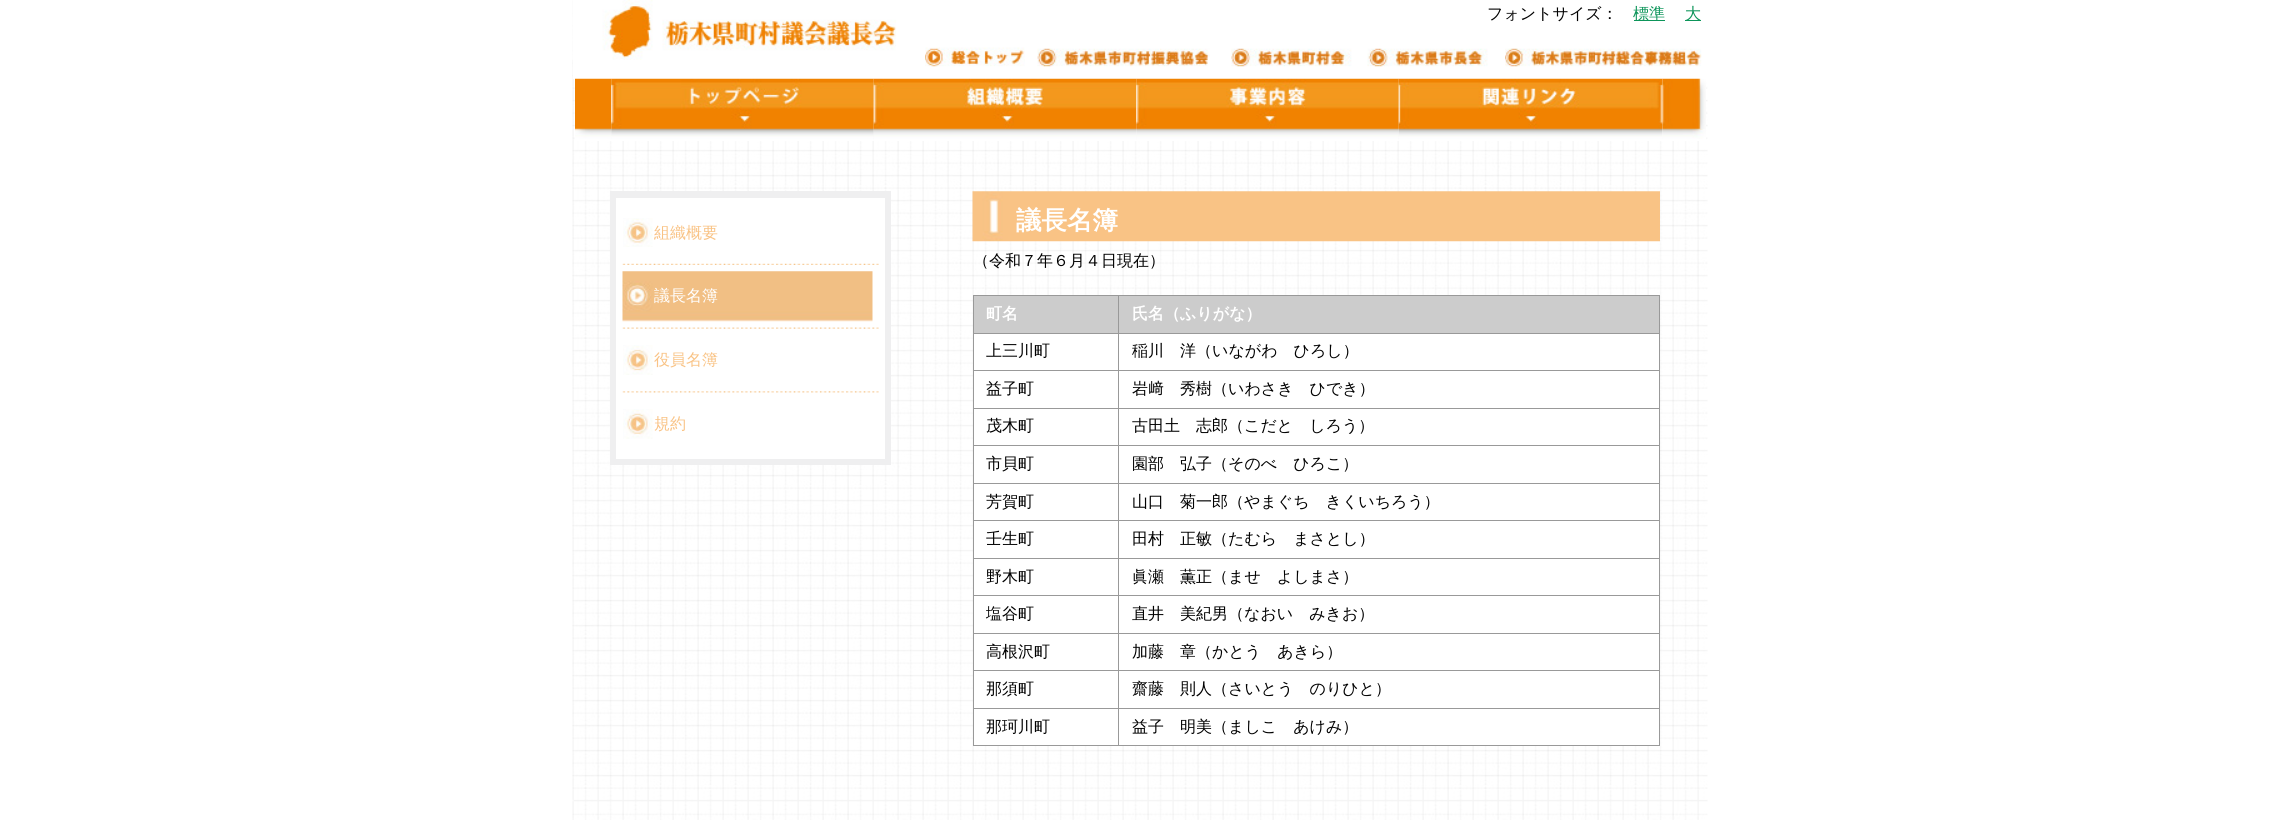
#include <cairo.h>
#include <math.h>
#include <stddef.h>


static void ink(cairo_t *ctx, unsigned color) {
    cairo_set_source_rgb(ctx, (color >> 16) / 255.0, (color >> 8 & 255) / 255.0, (color & 255) / 255.0);
}

static void paste(cairo_t *ctx, const char *path, double x, double y, double w, double h) {
    cairo_surface_t *image = cairo_image_surface_create_from_png(path);
    cairo_save(ctx);
    cairo_set_source_surface(ctx, image, x, y);
    cairo_rectangle(ctx, x, y, w, h);
    cairo_fill(ctx);
    cairo_restore(ctx);
    cairo_surface_destroy(image);
}

int main(void) {
    cairo_surface_t *surface = cairo_image_surface_create(CAIRO_FORMAT_RGB24, 2279, 820);
    cairo_t *ctx = cairo_create(surface);
    cairo_font_options_t *options = cairo_font_options_create();
    cairo_font_options_set_hint_metrics(options, CAIRO_HINT_METRICS_OFF);
    cairo_font_options_set_hint_style(options, CAIRO_HINT_STYLE_NONE);
    cairo_set_font_options(ctx, options);
    cairo_set_miter_limit(ctx, 4);
    ink(ctx, 0xFFFFFF);
    cairo_paint(ctx);
    paste(ctx, "media/1.png", 572, 0, 1136, 820);
    ink(ctx, 0xFFFFFF);
    cairo_rectangle(ctx, 573, 0, 1135, 79);
    cairo_fill(ctx);
    paste(ctx, "media/2.png", 572, 0, 325, 60);
    cairo_select_font_face(ctx, "WenQuanYi Zen Hei Medium", CAIRO_FONT_SLANT_NORMAL, CAIRO_FONT_WEIGHT_NORMAL);
    cairo_set_font_size(ctx, 16);
    ink(ctx, 0x000000);
    cairo_move_to(ctx, 1487, 19);
    cairo_show_text(ctx, "フォントサイズ：");
    ink(ctx, 0x0D955A);
    cairo_rectangle(ctx, 1634, 20, 31, 1);
    cairo_fill(ctx);
    cairo_move_to(ctx, 1633, 19);
    cairo_show_text(ctx, "標準");
    cairo_rectangle(ctx, 1685, 20, 16, 1);
    cairo_fill(ctx);
    cairo_move_to(ctx, 1685, 19);
    cairo_show_text(ctx, "大");
    paste(ctx, "media/3.png", 925, 47, 100, 20);
    paste(ctx, "media/4.png", 1037, 48, 173, 19);
    paste(ctx, "media/5.png", 1231, 48, 121, 19);
    paste(ctx, "media/6.png", 1367, 48, 121, 19);
    paste(ctx, "media/7.png", 1505, 48, 197, 19);
    paste(ctx, "media/8.png", 575, 78, 37, 63);
    paste(ctx, "media/9.png", 611, 78, 263, 63);
    paste(ctx, "media/10.png", 873, 78, 264, 63);
    paste(ctx, "media/11.png", 1136, 78, 263, 63);
    paste(ctx, "media/12.png", 1398, 78, 265, 63);
    paste(ctx, "media/13.png", 1662, 78, 44, 63);
    ink(ctx, 0xEFEFF0);
    cairo_rectangle(ctx, 610, 191, 281, 274);
    cairo_fill(ctx);
    ink(ctx, 0xFFFFFF);
    cairo_rectangle(ctx, 616, 198, 269, 261);
    cairo_fill(ctx);
    paste(ctx, "media/14.png", 623, 218, 30, 29);
    ink(ctx, 0xF9C385);
    cairo_move_to(ctx, 654, 238);
    cairo_show_text(ctx, "組織概要");
    paste(ctx, "media/15.png", 622, 263, 257, 2);
    paste(ctx, "media/16.png", 622, 271, 251, 51);
    ink(ctx, 0xFFFFFF);
    cairo_move_to(ctx, 654, 301);
    cairo_show_text(ctx, "議長名簿");
    paste(ctx, "media/17.png", 622, 327, 257, 2);
    paste(ctx, "media/18.png", 623, 345, 30, 30);
    ink(ctx, 0xF9C385);
    cairo_move_to(ctx, 654, 365);
    cairo_show_text(ctx, "役員名簿");
    paste(ctx, "media/19.png", 622, 391, 257, 2);
    paste(ctx, "media/20.png", 623, 409, 30, 30);
    cairo_move_to(ctx, 654, 429);
    cairo_show_text(ctx, "規約");
    paste(ctx, "media/21.png", 972, 191, 688, 51);
    cairo_select_font_face(ctx, "WenQuanYi Zen Hei", CAIRO_FONT_SLANT_NORMAL, CAIRO_FONT_WEIGHT_BOLD);
    cairo_set_font_size(ctx, 25.5);
    ink(ctx, 0xFFFFFF);
    cairo_move_to(ctx, 1016, 229);
    cairo_show_text(ctx, "議長名簿");
    cairo_select_font_face(ctx, "WenQuanYi Zen Hei Medium", CAIRO_FONT_SLANT_NORMAL, CAIRO_FONT_WEIGHT_NORMAL);
    cairo_set_font_size(ctx, 16);
    ink(ctx, 0x000000);
    cairo_move_to(ctx, 973, 266);
    cairo_show_text(ctx, "（令和７年６月４日現在）");
    ink(ctx, 0x999999);
    cairo_rectangle(ctx, 973, 295, 687, 451);
    cairo_fill(ctx);
    ink(ctx, 0xCCCCCC);
    cairo_rectangle(ctx, 974, 296, 144, 37);
    cairo_fill(ctx);
    cairo_select_font_face(ctx, "WenQuanYi Zen Hei", CAIRO_FONT_SLANT_NORMAL, CAIRO_FONT_WEIGHT_BOLD);
    ink(ctx, 0xFFFFFF);
    cairo_move_to(ctx, 986, 319);
    cairo_show_text(ctx, "町名");
    ink(ctx, 0xCCCCCC);
    cairo_rectangle(ctx, 1119, 296, 540, 37);
    cairo_fill(ctx);
    ink(ctx, 0xFFFFFF);
    cairo_move_to(ctx, 1132, 319);
    cairo_show_text(ctx, "氏名（ふりがな）");
    cairo_rectangle(ctx, 974, 334, 144, 36);
    cairo_fill(ctx);
    cairo_select_font_face(ctx, "WenQuanYi Zen Hei Medium", CAIRO_FONT_SLANT_NORMAL, CAIRO_FONT_WEIGHT_NORMAL);
    ink(ctx, 0x000000);
    cairo_move_to(ctx, 986, 356);
    cairo_show_text(ctx, "上三川町");
    ink(ctx, 0xFFFFFF);
    cairo_rectangle(ctx, 1119, 334, 540, 36);
    cairo_fill(ctx);
    ink(ctx, 0x000000);
    cairo_move_to(ctx, 1132, 356);
    cairo_show_text(ctx, "稲川　洋（いながわ　ひろし）");
    ink(ctx, 0xFFFFFF);
    cairo_rectangle(ctx, 974, 371, 144, 37);
    cairo_fill(ctx);
    ink(ctx, 0x000000);
    cairo_move_to(ctx, 986, 394);
    cairo_show_text(ctx, "益子町");
    ink(ctx, 0xFFFFFF);
    cairo_rectangle(ctx, 1119, 371, 540, 37);
    cairo_fill(ctx);
    ink(ctx, 0x000000);
    cairo_move_to(ctx, 1132, 394);
    cairo_show_text(ctx, "岩");
    cairo_select_font_face(ctx, "IPAGothic", CAIRO_FONT_SLANT_NORMAL, CAIRO_FONT_WEIGHT_NORMAL);
    cairo_move_to(ctx, 1148, 394);
    cairo_show_text(ctx, "﨑");
    cairo_select_font_face(ctx, "WenQuanYi Zen Hei Medium", CAIRO_FONT_SLANT_NORMAL, CAIRO_FONT_WEIGHT_NORMAL);
    cairo_move_to(ctx, 1180, 394);
    cairo_show_text(ctx, "秀樹（いわさき　ひでき）");
    ink(ctx, 0xFFFFFF);
    cairo_rectangle(ctx, 974, 409, 144, 36);
    cairo_fill(ctx);
    ink(ctx, 0x000000);
    cairo_move_to(ctx, 986, 431);
    cairo_show_text(ctx, "茂木町");
    ink(ctx, 0xFFFFFF);
    cairo_rectangle(ctx, 1119, 409, 540, 36);
    cairo_fill(ctx);
    ink(ctx, 0x000000);
    cairo_move_to(ctx, 1132, 431);
    cairo_show_text(ctx, "古田土　志郎（こだと　しろう）");
    ink(ctx, 0xFFFFFF);
    cairo_rectangle(ctx, 974, 446, 144, 37);
    cairo_fill(ctx);
    ink(ctx, 0x000000);
    cairo_move_to(ctx, 986, 469);
    cairo_show_text(ctx, "市貝町");
    ink(ctx, 0xFFFFFF);
    cairo_rectangle(ctx, 1119, 446, 540, 37);
    cairo_fill(ctx);
    ink(ctx, 0x000000);
    cairo_move_to(ctx, 1132, 469);
    cairo_show_text(ctx, "園部　弘子（そのべ　ひろこ）");
    ink(ctx, 0xFFFFFF);
    cairo_rectangle(ctx, 974, 484, 144, 36);
    cairo_fill(ctx);
    ink(ctx, 0x000000);
    cairo_move_to(ctx, 986, 507);
    cairo_show_text(ctx, "芳賀町");
    ink(ctx, 0xFFFFFF);
    cairo_rectangle(ctx, 1119, 484, 540, 36);
    cairo_fill(ctx);
    ink(ctx, 0x000000);
    cairo_move_to(ctx, 1132, 507);
    cairo_show_text(ctx, "山口　菊一郎（やまぐち　きくいちろう）");
    ink(ctx, 0xFFFFFF);
    cairo_rectangle(ctx, 974, 521, 144, 37);
    cairo_fill(ctx);
    ink(ctx, 0x000000);
    cairo_move_to(ctx, 986, 544);
    cairo_show_text(ctx, "壬生町");
    ink(ctx, 0xFFFFFF);
    cairo_rectangle(ctx, 1119, 521, 540, 37);
    cairo_fill(ctx);
    ink(ctx, 0x000000);
    cairo_move_to(ctx, 1132, 544);
    cairo_show_text(ctx, "田村　正敏（たむら　まさとし）");
    ink(ctx, 0xFFFFFF);
    cairo_rectangle(ctx, 974, 559, 144, 36);
    cairo_fill(ctx);
    ink(ctx, 0x000000);
    cairo_move_to(ctx, 986, 582);
    cairo_show_text(ctx, "野木町");
    ink(ctx, 0xFFFFFF);
    cairo_rectangle(ctx, 1119, 559, 540, 36);
    cairo_fill(ctx);
    ink(ctx, 0x000000);
    cairo_move_to(ctx, 1132, 582);
    cairo_show_text(ctx, "眞瀬　薫正（ませ　よしまさ）");
    ink(ctx, 0xFFFFFF);
    cairo_rectangle(ctx, 974, 596, 144, 37);
    cairo_fill(ctx);
    ink(ctx, 0x000000);
    cairo_move_to(ctx, 986, 619);
    cairo_show_text(ctx, "塩谷町");
    ink(ctx, 0xFFFFFF);
    cairo_rectangle(ctx, 1119, 596, 540, 37);
    cairo_fill(ctx);
    ink(ctx, 0x000000);
    cairo_move_to(ctx, 1132, 619);
    cairo_show_text(ctx, "直井　美紀男（なおい　みきお）");
    ink(ctx, 0xFFFFFF);
    cairo_rectangle(ctx, 974, 634, 144, 36);
    cairo_fill(ctx);
    ink(ctx, 0x000000);
    cairo_move_to(ctx, 986, 657);
    cairo_show_text(ctx, "高根沢町");
    ink(ctx, 0xFFFFFF);
    cairo_rectangle(ctx, 1119, 634, 540, 36);
    cairo_fill(ctx);
    ink(ctx, 0x000000);
    cairo_move_to(ctx, 1132, 657);
    cairo_show_text(ctx, "加藤　章（かとう　あきら）");
    ink(ctx, 0xFFFFFF);
    cairo_rectangle(ctx, 974, 671, 144, 37);
    cairo_fill(ctx);
    ink(ctx, 0x000000);
    cairo_move_to(ctx, 986, 694);
    cairo_show_text(ctx, "那須町");
    ink(ctx, 0xFFFFFF);
    cairo_rectangle(ctx, 1119, 671, 540, 37);
    cairo_fill(ctx);
    ink(ctx, 0x000000);
    cairo_move_to(ctx, 1132, 694);
    cairo_show_text(ctx, "齋藤　則人（さいとう　のりひと）");
    ink(ctx, 0xFFFFFF);
    cairo_rectangle(ctx, 974, 709, 144, 36);
    cairo_fill(ctx);
    ink(ctx, 0x000000);
    cairo_move_to(ctx, 986, 732);
    cairo_show_text(ctx, "那珂川町");
    ink(ctx, 0xFFFFFF);
    cairo_rectangle(ctx, 1119, 709, 540, 36);
    cairo_fill(ctx);
    ink(ctx, 0x000000);
    cairo_move_to(ctx, 1132, 732);
    cairo_show_text(ctx, "益子　明美（ましこ　あけみ）");
    cairo_surface_write_to_png(surface, "image.png");
    cairo_font_options_destroy(options);
    cairo_destroy(ctx);
    cairo_surface_destroy(surface);
    return 0;
}
